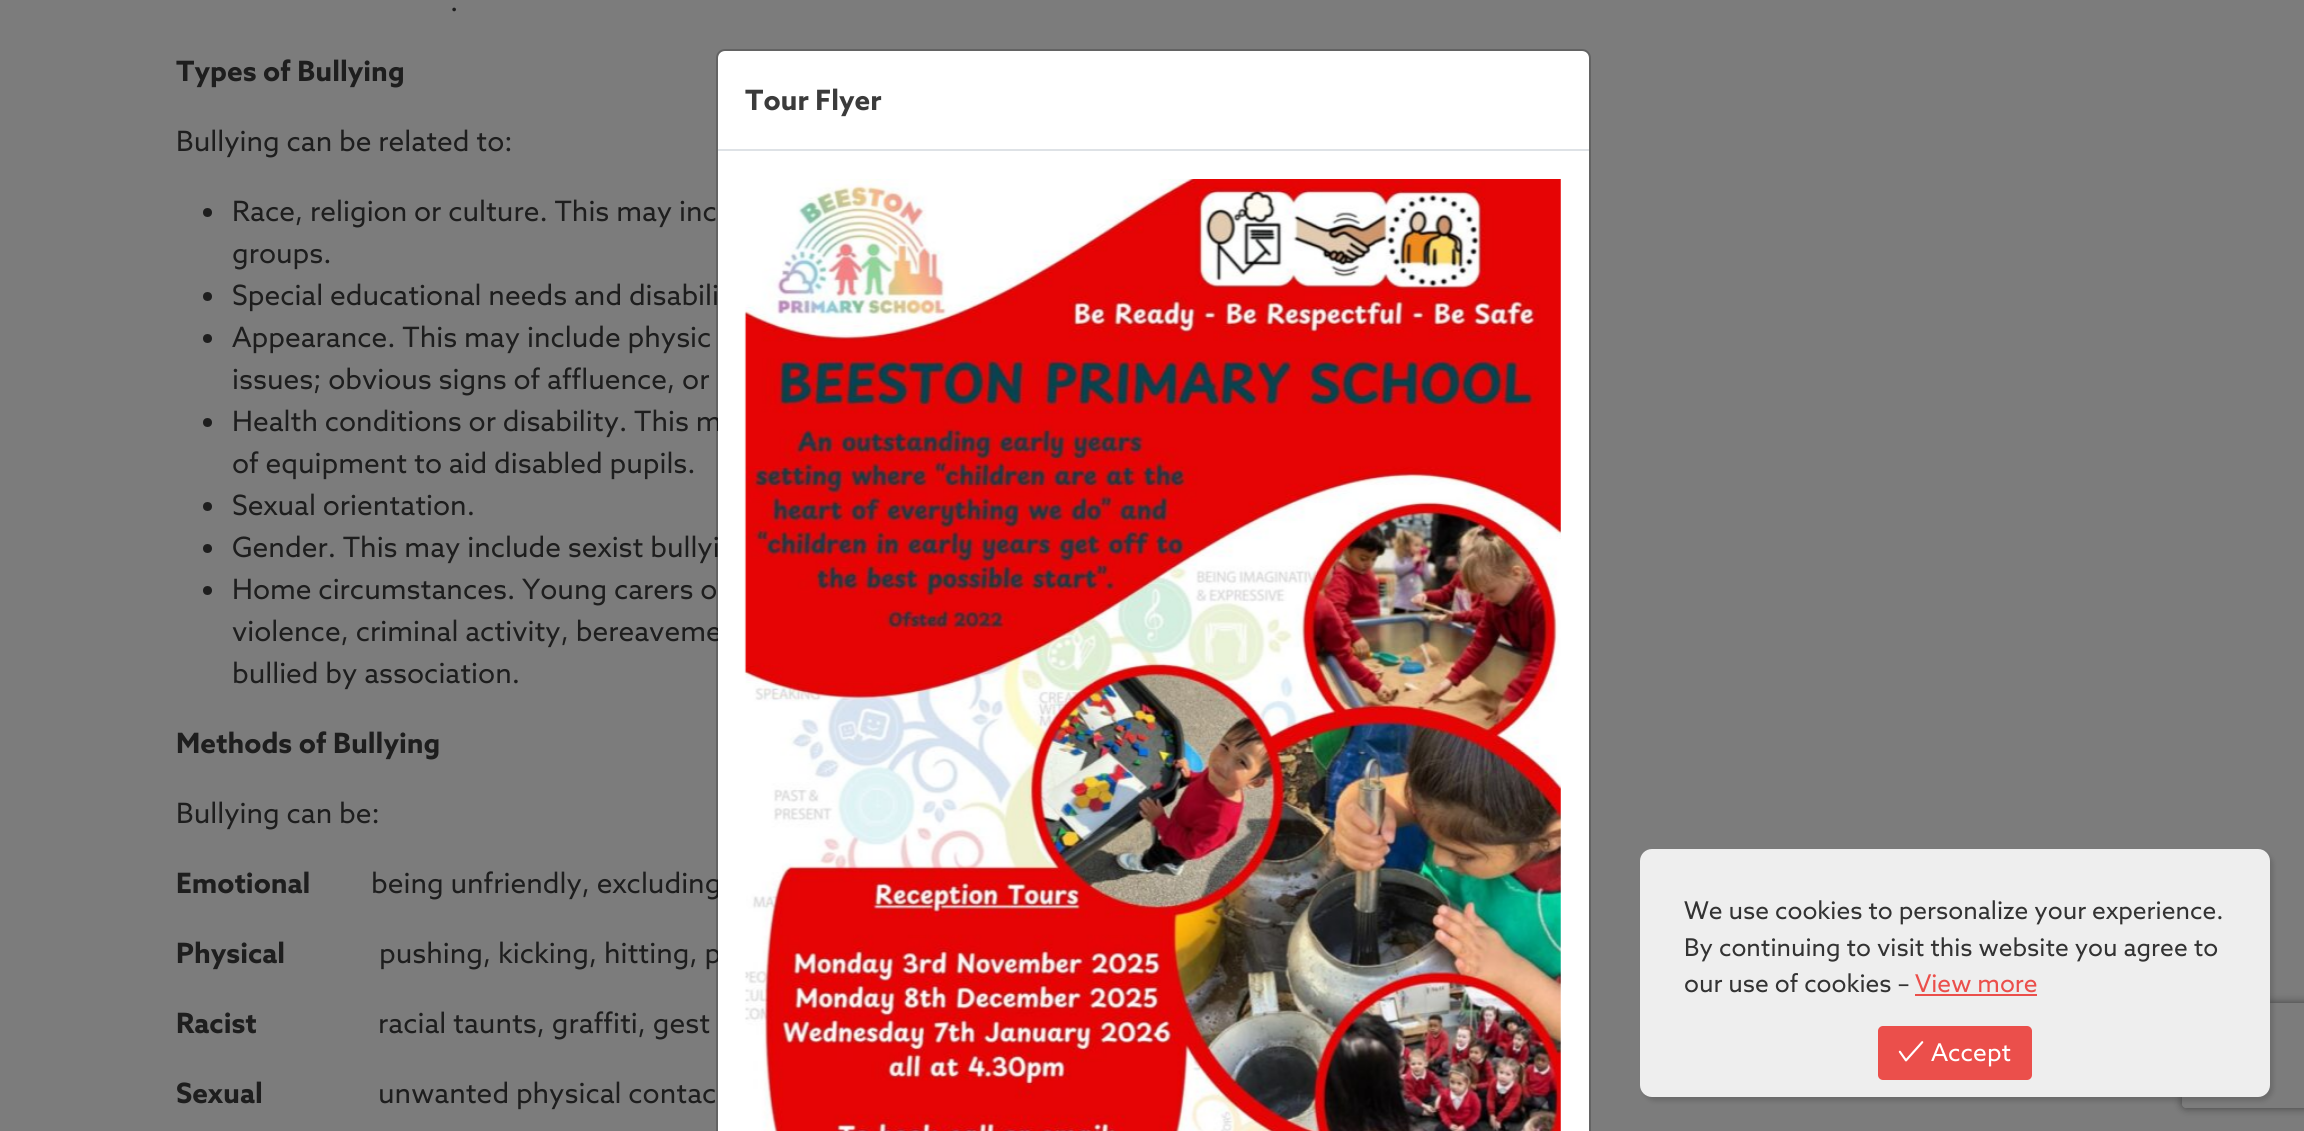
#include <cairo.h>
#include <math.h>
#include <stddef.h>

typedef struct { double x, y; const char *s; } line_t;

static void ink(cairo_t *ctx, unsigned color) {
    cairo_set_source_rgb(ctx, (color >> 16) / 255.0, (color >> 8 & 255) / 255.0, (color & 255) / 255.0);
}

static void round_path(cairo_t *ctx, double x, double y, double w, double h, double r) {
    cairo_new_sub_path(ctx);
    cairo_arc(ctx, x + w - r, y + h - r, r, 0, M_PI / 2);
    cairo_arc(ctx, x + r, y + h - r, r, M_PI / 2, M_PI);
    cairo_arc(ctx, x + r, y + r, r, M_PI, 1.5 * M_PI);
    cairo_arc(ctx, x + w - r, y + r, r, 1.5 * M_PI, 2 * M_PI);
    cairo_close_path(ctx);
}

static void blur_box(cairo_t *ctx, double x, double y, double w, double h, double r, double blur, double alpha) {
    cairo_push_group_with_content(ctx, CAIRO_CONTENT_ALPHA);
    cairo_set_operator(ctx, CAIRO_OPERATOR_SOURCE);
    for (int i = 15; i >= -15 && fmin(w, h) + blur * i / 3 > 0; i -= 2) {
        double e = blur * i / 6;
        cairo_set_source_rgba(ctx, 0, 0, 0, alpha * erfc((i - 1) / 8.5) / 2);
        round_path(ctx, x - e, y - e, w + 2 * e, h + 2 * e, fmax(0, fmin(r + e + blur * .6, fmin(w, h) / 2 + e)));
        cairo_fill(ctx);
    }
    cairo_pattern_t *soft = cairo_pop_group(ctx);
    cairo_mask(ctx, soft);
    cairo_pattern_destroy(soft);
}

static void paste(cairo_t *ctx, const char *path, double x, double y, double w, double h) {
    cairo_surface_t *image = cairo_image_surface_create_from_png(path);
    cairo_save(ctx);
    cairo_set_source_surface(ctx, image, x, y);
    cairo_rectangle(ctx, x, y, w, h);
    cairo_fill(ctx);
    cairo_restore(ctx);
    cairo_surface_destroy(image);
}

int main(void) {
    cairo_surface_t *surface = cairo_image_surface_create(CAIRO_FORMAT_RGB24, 2304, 1131);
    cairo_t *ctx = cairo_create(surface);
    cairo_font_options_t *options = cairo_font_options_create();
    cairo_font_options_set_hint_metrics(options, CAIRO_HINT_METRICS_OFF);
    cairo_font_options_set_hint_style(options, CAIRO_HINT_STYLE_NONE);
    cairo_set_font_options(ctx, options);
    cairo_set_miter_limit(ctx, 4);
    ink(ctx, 0x7C7C7C);
    cairo_paint(ctx);
    cairo_select_font_face(ctx, "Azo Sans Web", CAIRO_FONT_SLANT_NORMAL, CAIRO_FONT_WEIGHT_NORMAL);
    cairo_set_font_size(ctx, 28);
    ink(ctx, 0x1E1E1E);
    cairo_move_to(ctx, 450, 11);
    cairo_show_text(ctx, ".");
    cairo_select_font_face(ctx, "Azo Sans Web", CAIRO_FONT_SLANT_NORMAL, CAIRO_FONT_WEIGHT_BOLD);
    cairo_move_to(ctx, 176, 81);
    cairo_show_text(ctx, "Types of Bullying");
    cairo_select_font_face(ctx, "Azo Sans Web", CAIRO_FONT_SLANT_NORMAL, CAIRO_FONT_WEIGHT_NORMAL);
    cairo_move_to(ctx, 176, 151);
    cairo_show_text(ctx, "Bullying can be related to:");
    cairo_new_path(ctx);
    cairo_arc(ctx, 207.5, 212.5, 4.5, 0, 2 * M_PI);
    cairo_fill(ctx);
    cairo_move_to(ctx, 232, 221);
    cairo_show_text(ctx, "Race, religion or culture. This may inc");
    cairo_move_to(ctx, 232, 263);
    cairo_show_text(ctx, "groups.");
    cairo_new_path(ctx);
    cairo_arc(ctx, 207.5, 296.5, 4.5, 0, 2 * M_PI);
    cairo_fill(ctx);
    cairo_move_to(ctx, 232, 305);
    cairo_show_text(ctx, "Special educational needs and disabili");
    cairo_new_path(ctx);
    cairo_arc(ctx, 207.5, 338.5, 4.5, 0, 2 * M_PI);
    cairo_fill(ctx);
    cairo_move_to(ctx, 232, 347);
    cairo_show_text(ctx, "Appearance. This may include physic");
    cairo_move_to(ctx, 232, 389);
    cairo_show_text(ctx, "issues; obvious signs of affluence, or");
    cairo_new_path(ctx);
    cairo_arc(ctx, 207.5, 422.5, 4.5, 0, 2 * M_PI);
    cairo_fill(ctx);
    cairo_move_to(ctx, 232, 431);
    cairo_show_text(ctx, "Health conditions or disability. This m");
    cairo_move_to(ctx, 232, 473);
    cairo_show_text(ctx, "of equipment to aid disabled pupils.");
    cairo_new_path(ctx);
    cairo_arc(ctx, 207.5, 506.5, 4.5, 0, 2 * M_PI);
    cairo_fill(ctx);
    cairo_move_to(ctx, 232, 515);
    cairo_show_text(ctx, "Sexual orientation.");
    cairo_new_path(ctx);
    cairo_arc(ctx, 207.5, 548.5, 4.5, 0, 2 * M_PI);
    cairo_fill(ctx);
    cairo_move_to(ctx, 232, 557);
    cairo_show_text(ctx, "Gender. This may include sexist bullyi");
    cairo_new_path(ctx);
    cairo_arc(ctx, 207.5, 590.5, 4.5, 0, 2 * M_PI);
    cairo_fill(ctx);
    {
        static const line_t items[] = {
            {232, 599, "Home circumstances. Young carers o"},
            {232, 641, "violence, criminal activity, bereaveme"},
            {232, 683, "bullied by association."},
        };
        for (size_t i = 0; i < sizeof items / sizeof *items; i++) {
            cairo_move_to(ctx, items[i].x, items[i].y);
            cairo_show_text(ctx, items[i].s);
        }
    }
    cairo_select_font_face(ctx, "Azo Sans Web", CAIRO_FONT_SLANT_NORMAL, CAIRO_FONT_WEIGHT_BOLD);
    cairo_move_to(ctx, 176, 753);
    cairo_show_text(ctx, "Methods of Bullying");
    cairo_select_font_face(ctx, "Azo Sans Web", CAIRO_FONT_SLANT_NORMAL, CAIRO_FONT_WEIGHT_NORMAL);
    cairo_move_to(ctx, 176, 823);
    cairo_show_text(ctx, "Bullying can be:");
    cairo_select_font_face(ctx, "Azo Sans Web", CAIRO_FONT_SLANT_NORMAL, CAIRO_FONT_WEIGHT_BOLD);
    cairo_move_to(ctx, 176, 893);
    cairo_show_text(ctx, "Emotional");
    cairo_select_font_face(ctx, "Azo Sans Web", CAIRO_FONT_SLANT_NORMAL, CAIRO_FONT_WEIGHT_NORMAL);
    cairo_move_to(ctx, 371, 893);
    cairo_show_text(ctx, "being unfriendly, excluding");
    cairo_select_font_face(ctx, "Azo Sans Web", CAIRO_FONT_SLANT_NORMAL, CAIRO_FONT_WEIGHT_BOLD);
    cairo_move_to(ctx, 176, 963);
    cairo_show_text(ctx, "Physical");
    cairo_select_font_face(ctx, "Azo Sans Web", CAIRO_FONT_SLANT_NORMAL, CAIRO_FONT_WEIGHT_NORMAL);
    cairo_move_to(ctx, 379, 963);
    cairo_show_text(ctx, "pushing, kicking, hitting, p");
    cairo_select_font_face(ctx, "Azo Sans Web", CAIRO_FONT_SLANT_NORMAL, CAIRO_FONT_WEIGHT_BOLD);
    cairo_move_to(ctx, 176, 1033);
    cairo_show_text(ctx, "Racist");
    cairo_select_font_face(ctx, "Azo Sans Web", CAIRO_FONT_SLANT_NORMAL, CAIRO_FONT_WEIGHT_NORMAL);
    cairo_move_to(ctx, 378, 1033);
    cairo_show_text(ctx, "racial taunts, graffiti, gest");
    cairo_select_font_face(ctx, "Azo Sans Web", CAIRO_FONT_SLANT_NORMAL, CAIRO_FONT_WEIGHT_BOLD);
    cairo_move_to(ctx, 176, 1103);
    cairo_show_text(ctx, "Sexual");
    cairo_select_font_face(ctx, "Azo Sans Web", CAIRO_FONT_SLANT_NORMAL, CAIRO_FONT_WEIGHT_NORMAL);
    cairo_move_to(ctx, 378, 1103);
    cairo_show_text(ctx, "unwanted physical contac");
    ink(ctx, 0xFFFFFF);
    cairo_new_path(ctx);
    cairo_move_to(ctx, 725, 51);
    cairo_line_to(ctx, 1582, 51);
    cairo_curve_to(ctx, 1586, 51, 1589, 54, 1589, 58);
    cairo_line_to(ctx, 1589, 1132);
    cairo_line_to(ctx, 718, 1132);
    cairo_line_to(ctx, 718, 58);
    cairo_curve_to(ctx, 718, 54, 721, 51, 725, 51);
    cairo_close_path(ctx);
    cairo_fill(ctx);
    round_path(ctx, 717, 50, 873, 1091, 8);
    cairo_set_source_rgba(ctx, 0, 0, 0, 0.2);
    cairo_stroke(ctx);
    ink(ctx, 0xDEE2E6);
    cairo_rectangle(ctx, 718, 149, 871, 2);
    cairo_fill(ctx);
    cairo_select_font_face(ctx, "Azo Sans Web", CAIRO_FONT_SLANT_NORMAL, CAIRO_FONT_WEIGHT_BOLD);
    ink(ctx, 0x3B3B3B);
    cairo_move_to(ctx, 745, 110);
    cairo_show_text(ctx, "Tour Flyer");
    paste(ctx, "media/1.png", 744, 179, 817, 952);
    ink(ctx, 0x000000);
    blur_box(ctx, 1643, 852, 630, 249, 12, 2.5, 0.15);
    cairo_save(ctx);
    cairo_set_fill_rule(ctx, CAIRO_FILL_RULE_EVEN_ODD);
    cairo_new_path(ctx);
    cairo_move_to(ctx, 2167, 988);
    cairo_line_to(ctx, 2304, 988);
    cairo_line_to(ctx, 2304, 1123);
    cairo_line_to(ctx, 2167, 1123);
    cairo_close_path(ctx);
    cairo_move_to(ctx, 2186, 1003);
    cairo_line_to(ctx, 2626, 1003);
    cairo_curve_to(ctx, 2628, 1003, 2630, 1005, 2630, 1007);
    cairo_line_to(ctx, 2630, 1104);
    cairo_curve_to(ctx, 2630, 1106, 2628, 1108, 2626, 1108);
    cairo_line_to(ctx, 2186, 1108);
    cairo_curve_to(ctx, 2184, 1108, 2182, 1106, 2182, 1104);
    cairo_line_to(ctx, 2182, 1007);
    cairo_curve_to(ctx, 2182, 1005, 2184, 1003, 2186, 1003);
    cairo_close_path(ctx);
    cairo_clip(ctx);
    ink(ctx, 0x404040);
    blur_box(ctx, 2182, 1003, 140, 105, 4, 4.5, 1);
    cairo_restore(ctx);
    ink(ctx, 0xEEEEEE);
    round_path(ctx, 1640, 849, 630, 248, 12);
    cairo_fill(ctx);
    cairo_select_font_face(ctx, "Azo Sans Web", CAIRO_FONT_SLANT_NORMAL, CAIRO_FONT_WEIGHT_NORMAL);
    cairo_set_font_size(ctx, 24.5);
    ink(ctx, 0x333333);
    {
        static const line_t items[] = {
            {1684, 919, "We use cookies to personalize your experience."},
            {1684, 956, "By continuing to visit this website you agree to"},
            {1684, 992, "our use of cookies –"},
        };
        for (size_t i = 0; i < sizeof items / sizeof *items; i++) {
            cairo_move_to(ctx, items[i].x, items[i].y);
            cairo_show_text(ctx, items[i].s);
        }
    }
    ink(ctx, 0xEB4F4B);
    cairo_move_to(ctx, 1915, 992);
    cairo_show_text(ctx, "View more");
    cairo_rectangle(ctx, 1915, 994, 122, 2);
    cairo_fill(ctx);
    round_path(ctx, 1878, 1026, 154, 54, 5);
    cairo_fill(ctx);
    paste(ctx, "media/2.png", 1898, 1041, 26, 21);
    ink(ctx, 0xFFFFFF);
    cairo_move_to(ctx, 1931, 1061);
    cairo_show_text(ctx, "Accept");
    cairo_surface_write_to_png(surface, "image.png");
    cairo_font_options_destroy(options);
    cairo_destroy(ctx);
    cairo_surface_destroy(surface);
    return 0;
}
